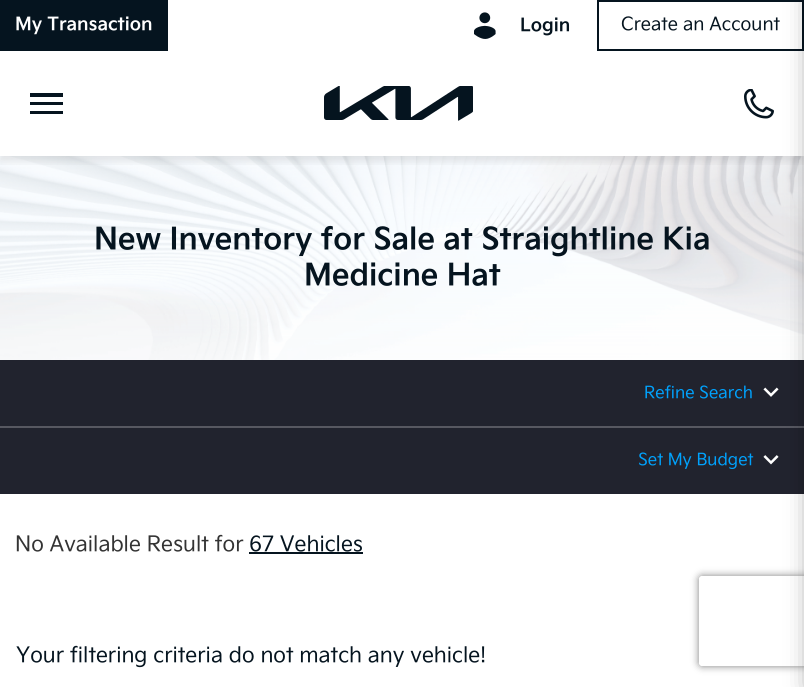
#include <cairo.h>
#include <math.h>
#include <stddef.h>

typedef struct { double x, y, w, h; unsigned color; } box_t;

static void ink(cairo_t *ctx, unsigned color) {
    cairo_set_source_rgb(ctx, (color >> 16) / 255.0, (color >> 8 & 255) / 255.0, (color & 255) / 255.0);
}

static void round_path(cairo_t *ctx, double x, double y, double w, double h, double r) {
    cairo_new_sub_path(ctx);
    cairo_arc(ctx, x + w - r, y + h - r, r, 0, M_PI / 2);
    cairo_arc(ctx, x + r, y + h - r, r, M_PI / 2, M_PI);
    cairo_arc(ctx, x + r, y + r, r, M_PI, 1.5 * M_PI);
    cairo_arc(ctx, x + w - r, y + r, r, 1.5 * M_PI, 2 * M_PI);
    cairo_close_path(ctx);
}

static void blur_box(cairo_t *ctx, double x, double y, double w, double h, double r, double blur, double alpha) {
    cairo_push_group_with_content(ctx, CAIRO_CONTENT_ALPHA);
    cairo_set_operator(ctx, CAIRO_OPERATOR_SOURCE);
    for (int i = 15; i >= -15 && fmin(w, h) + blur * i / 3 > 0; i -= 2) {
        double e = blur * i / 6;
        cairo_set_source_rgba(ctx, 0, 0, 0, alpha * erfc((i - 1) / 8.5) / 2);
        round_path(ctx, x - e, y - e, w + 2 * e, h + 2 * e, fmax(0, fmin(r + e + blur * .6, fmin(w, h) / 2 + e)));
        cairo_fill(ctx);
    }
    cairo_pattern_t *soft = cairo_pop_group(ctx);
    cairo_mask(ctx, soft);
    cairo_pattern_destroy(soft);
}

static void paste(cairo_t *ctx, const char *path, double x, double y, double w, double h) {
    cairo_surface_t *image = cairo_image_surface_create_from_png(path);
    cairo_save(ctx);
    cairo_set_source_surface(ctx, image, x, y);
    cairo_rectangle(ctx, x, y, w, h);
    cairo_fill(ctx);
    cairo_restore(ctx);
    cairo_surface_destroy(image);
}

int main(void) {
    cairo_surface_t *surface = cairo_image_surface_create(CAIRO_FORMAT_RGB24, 804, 687);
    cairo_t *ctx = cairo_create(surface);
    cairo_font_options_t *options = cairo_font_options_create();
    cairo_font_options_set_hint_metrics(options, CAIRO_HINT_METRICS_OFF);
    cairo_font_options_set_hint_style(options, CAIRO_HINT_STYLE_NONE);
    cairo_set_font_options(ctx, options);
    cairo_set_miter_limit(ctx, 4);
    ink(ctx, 0xFFFFFF);
    cairo_paint(ctx);
    paste(ctx, "media/4.png", 0, 156, 804, 204);
    cairo_save(ctx);
    cairo_rectangle(ctx, 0, 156, 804, 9);
    cairo_clip(ctx);
    ink(ctx, 0x000000);
    blur_box(ctx, 0, 56, 804, 105, 0, 4.5, 0.1);
    cairo_restore(ctx);
    ink(ctx, 0xFFFFFF);
    cairo_rectangle(ctx, 168, 50, 630, 1);
    cairo_fill(ctx);
    ink(ctx, 0x05141F);
    cairo_rectangle(ctx, 0, 0, 168, 51);
    cairo_fill(ctx);
    cairo_select_font_face(ctx, "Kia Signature", CAIRO_FONT_SLANT_NORMAL, CAIRO_FONT_WEIGHT_BOLD);
    cairo_set_font_size(ctx, 18);
    ink(ctx, 0xFFFFFF);
    cairo_move_to(ctx, 15, 30);
    cairo_show_text(ctx, "My Transaction");
    paste(ctx, "media/1.png", 474, 12, 22, 27);
    ink(ctx, 0x05141F);
    cairo_move_to(ctx, 520, 31);
    cairo_show_text(ctx, "Login");
    cairo_rectangle(ctx, 598, 1, 205, 49);
    cairo_stroke(ctx);
    cairo_select_font_face(ctx, "Kia Signature", CAIRO_FONT_SLANT_NORMAL, CAIRO_FONT_WEIGHT_NORMAL);
    cairo_move_to(ctx, 621, 30);
    cairo_show_text(ctx, "Create an Account");
    {
        static const box_t items[] = {
            {30, 93, 33, 4, 0x05141F},
            {30, 102, 33, 3, 0x05141F},
            {30, 111, 33, 3, 0x05141F},
        };
        for (size_t i = 0; i < sizeof items / sizeof *items; i++) {
            ink(ctx, items[i].color);
            cairo_rectangle(ctx, items[i].x, items[i].y, items[i].w, items[i].h);
            cairo_fill(ctx);
        }
    }
    paste(ctx, "media/2.png", 324, 86, 149, 35);
    paste(ctx, "media/3.png", 744, 89, 30, 30);
    cairo_select_font_face(ctx, "Kia Signature", CAIRO_FONT_SLANT_NORMAL, CAIRO_FONT_WEIGHT_BOLD);
    cairo_set_font_size(ctx, 30);
    cairo_move_to(ctx, 94, 249);
    cairo_show_text(ctx, "New Inventory for Sale at Straightline Kia");
    cairo_move_to(ctx, 304, 285);
    cairo_show_text(ctx, "Medicine Hat");
    ink(ctx, 0x21232E);
    cairo_rectangle(ctx, 0, 360, 804, 66);
    cairo_fill(ctx);
    ink(ctx, 0x575861);
    cairo_rectangle(ctx, 0, 426, 804, 2);
    cairo_fill(ctx);
    cairo_select_font_face(ctx, "Kia Signature", CAIRO_FONT_SLANT_NORMAL, CAIRO_FONT_WEIGHT_NORMAL);
    cairo_set_font_size(ctx, 16.5);
    ink(ctx, 0x00A2FD);
    cairo_move_to(ctx, 644, 398);
    cairo_show_text(ctx, "Refine Search");
    paste(ctx, "media/5.png", 763, 387, 16, 10);
    ink(ctx, 0x21232E);
    cairo_rectangle(ctx, 0, 428, 804, 66);
    cairo_fill(ctx);
    paste(ctx, "media/6.png", 763, 455, 16, 10);
    ink(ctx, 0x000000);
    blur_box(ctx, 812, 0, 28, 687, 0, 12, 0.5);
    ink(ctx, 0x00A2FD);
    cairo_move_to(ctx, 638, 465);
    cairo_show_text(ctx, "Set My Budget");
    cairo_set_font_size(ctx, 21);
    ink(ctx, 0x333333);
    cairo_move_to(ctx, 15, 551);
    cairo_show_text(ctx, "No Available Result for");
    ink(ctx, 0x05141F);
    cairo_move_to(ctx, 249, 551);
    cairo_show_text(ctx, "67 Vehicles");
    cairo_rectangle(ctx, 249, 552, 114, 2);
    cairo_fill(ctx);
    cairo_move_to(ctx, 16, 662);
    cairo_show_text(ctx, "Your filtering criteria do not match any vehicle!");
    cairo_save(ctx);
    cairo_set_fill_rule(ctx, CAIRO_FILL_RULE_EVEN_ODD);
    cairo_new_path(ctx);
    cairo_move_to(ctx, 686, 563);
    cairo_line_to(ctx, 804, 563);
    cairo_line_to(ctx, 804, 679);
    cairo_line_to(ctx, 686, 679);
    cairo_close_path(ctx);
    cairo_move_to(ctx, 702, 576);
    cairo_line_to(ctx, 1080, 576);
    cairo_curve_to(ctx, 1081.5, 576, 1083, 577.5, 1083, 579);
    cairo_line_to(ctx, 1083, 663);
    cairo_curve_to(ctx, 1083, 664.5, 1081.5, 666, 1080, 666);
    cairo_line_to(ctx, 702, 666);
    cairo_curve_to(ctx, 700.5, 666, 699, 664.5, 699, 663);
    cairo_line_to(ctx, 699, 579);
    cairo_curve_to(ctx, 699, 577.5, 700.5, 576, 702, 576);
    cairo_close_path(ctx);
    cairo_clip(ctx);
    ink(ctx, 0x808080);
    blur_box(ctx, 699, 576, 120, 90, 3, 4, 1);
    cairo_restore(ctx);
    cairo_surface_write_to_png(surface, "image.png");
    cairo_font_options_destroy(options);
    cairo_destroy(ctx);
    cairo_surface_destroy(surface);
    return 0;
}
